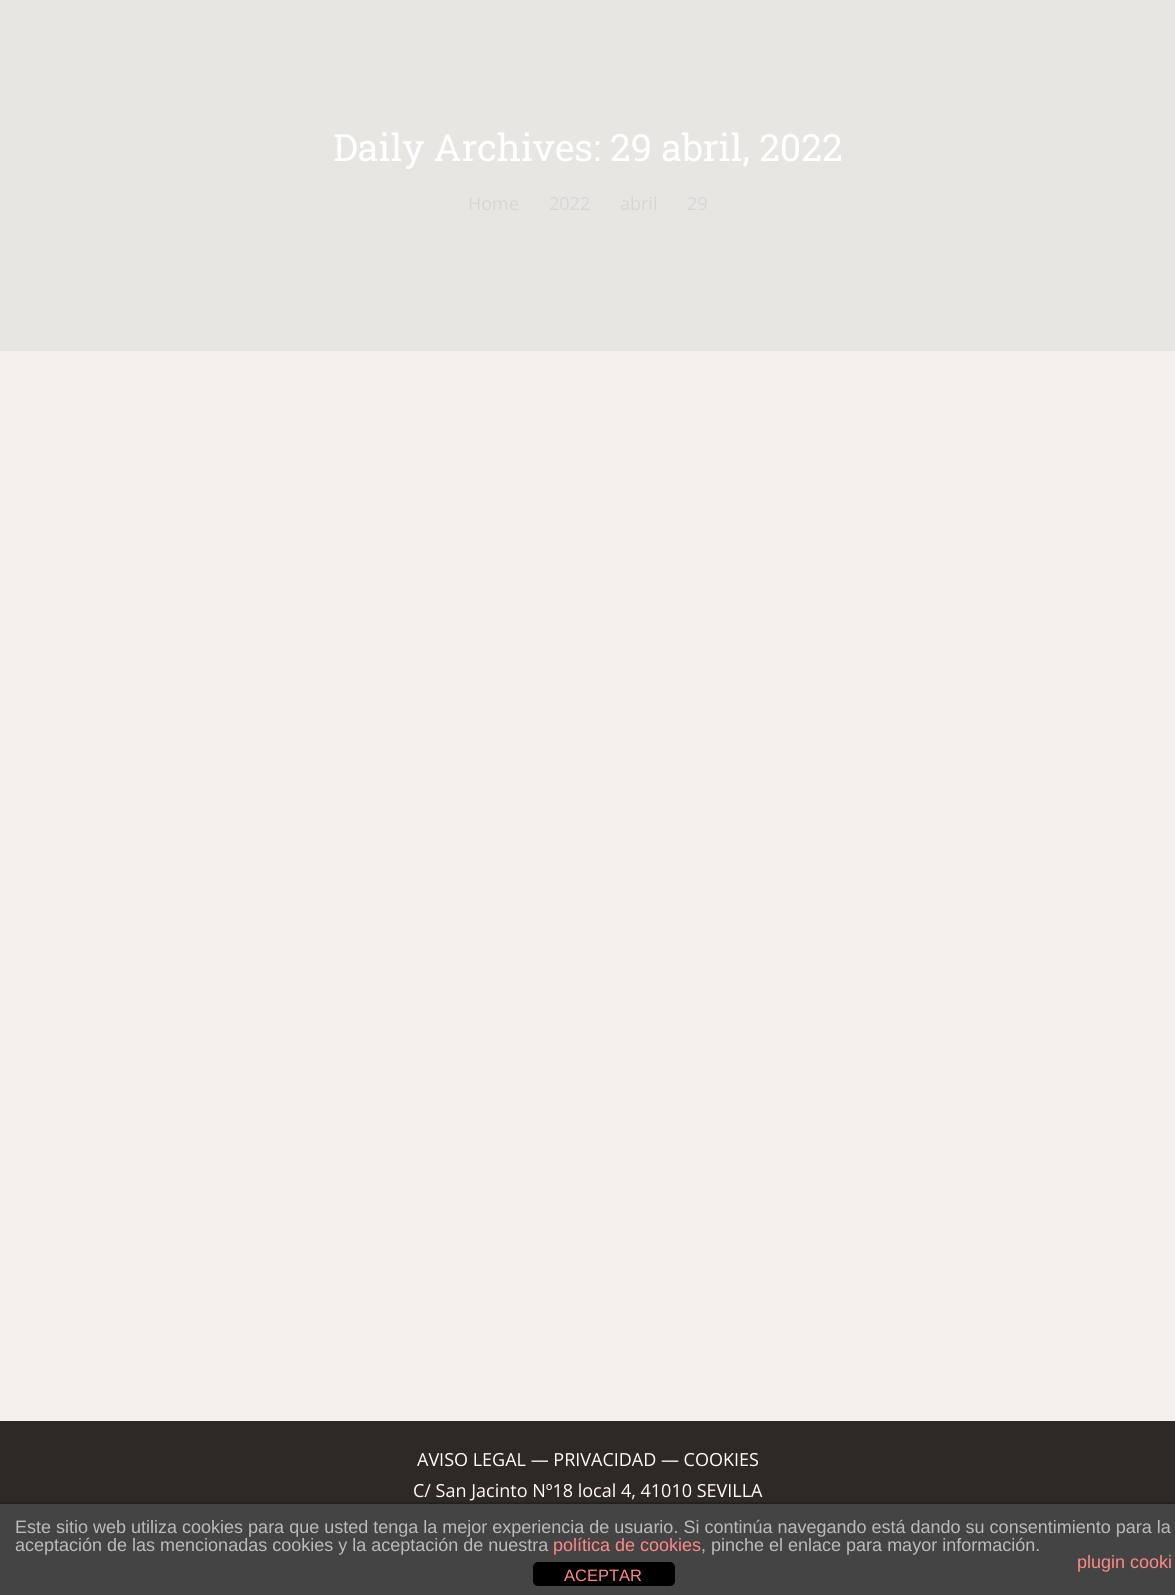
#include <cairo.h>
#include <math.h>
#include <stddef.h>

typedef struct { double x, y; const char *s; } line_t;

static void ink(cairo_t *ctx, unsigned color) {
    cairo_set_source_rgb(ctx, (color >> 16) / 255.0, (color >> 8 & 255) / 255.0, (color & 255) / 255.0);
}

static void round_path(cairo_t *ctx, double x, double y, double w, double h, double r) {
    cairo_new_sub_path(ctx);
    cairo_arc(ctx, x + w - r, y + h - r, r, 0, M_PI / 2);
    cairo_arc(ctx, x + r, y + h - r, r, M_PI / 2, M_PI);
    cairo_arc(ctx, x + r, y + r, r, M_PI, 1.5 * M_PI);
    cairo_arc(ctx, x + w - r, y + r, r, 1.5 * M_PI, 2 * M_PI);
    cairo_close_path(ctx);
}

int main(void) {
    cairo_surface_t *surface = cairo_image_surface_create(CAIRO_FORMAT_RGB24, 1175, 1595);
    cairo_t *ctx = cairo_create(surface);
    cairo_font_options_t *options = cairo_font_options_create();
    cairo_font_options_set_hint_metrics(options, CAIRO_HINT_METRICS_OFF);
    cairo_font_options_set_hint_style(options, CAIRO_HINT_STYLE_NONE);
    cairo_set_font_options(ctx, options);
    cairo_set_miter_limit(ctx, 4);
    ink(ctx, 0xF3F0ED);
    cairo_paint(ctx);
    ink(ctx, 0xE8E6E3);
    cairo_rectangle(ctx, 0, 0, 1175, 351);
    cairo_fill(ctx);
    cairo_select_font_face(ctx, "Roboto Slab", CAIRO_FONT_SLANT_NORMAL, CAIRO_FONT_WEIGHT_NORMAL);
    cairo_set_font_size(ctx, 37.5);
    ink(ctx, 0xFFFFFF);
    cairo_move_to(ctx, 333, 161);
    cairo_show_text(ctx, "Daily Archives: 29 abril, 2022");
    cairo_select_font_face(ctx, "Open Sans", CAIRO_FONT_SLANT_NORMAL, CAIRO_FONT_WEIGHT_NORMAL);
    cairo_set_font_size(ctx, 18);
    ink(ctx, 0xD8D4D4);
    {
        static const line_t items[] = {
            {468, 210, "Home"},
            {549, 210, "2022"},
            {620, 210, "abril"},
            {687, 210, "29"},
        };
        for (size_t i = 0; i < sizeof items / sizeof *items; i++) {
            cairo_move_to(ctx, items[i].x, items[i].y);
            cairo_show_text(ctx, items[i].s);
        }
    }
    ink(ctx, 0x2F2926);
    cairo_rectangle(ctx, 0, 1421, 1175, 81);
    cairo_fill(ctx);
    ink(ctx, 0xFFFFFF);
    cairo_move_to(ctx, 417, 1466);
    cairo_show_text(ctx, "AVISO LEGAL — PRIVACIDAD — COOKIES");
    cairo_move_to(ctx, 413, 1497);
    cairo_show_text(ctx, "C/ San Jacinto Nº18 local 4, 41010 SEVILLA");
    ink(ctx, 0x444444);
    cairo_rectangle(ctx, 0, 1504, 1175, 91);
    cairo_fill(ctx);
    ink(ctx, 0x222222);
    cairo_rectangle(ctx, 0, 1502, 1175, 2);
    cairo_fill(ctx);
    cairo_select_font_face(ctx, "Liberation Sans", CAIRO_FONT_SLANT_NORMAL, CAIRO_FONT_WEIGHT_NORMAL);
    ink(ctx, 0xBBBBBB);
    cairo_move_to(ctx, 15, 1533);
    cairo_show_text(ctx, "Este sitio web utiliza cookies para que usted tenga la mejor experiencia de usuario. Si continúa navegando está dando su consentimiento para la");
    cairo_move_to(ctx, 15, 1551);
    cairo_show_text(ctx, "aceptación de las mencionadas cookies y la aceptación de nuestra");
    ink(ctx, 0xFF8888);
    cairo_move_to(ctx, 553, 1551);
    cairo_show_text(ctx, "política de cookies");
    ink(ctx, 0xBBBBBB);
    cairo_move_to(ctx, 701, 1551);
    cairo_show_text(ctx, ", pinche el enlace para mayor información.");
    ink(ctx, 0xFF8888);
    cairo_move_to(ctx, 1077, 1568);
    cairo_show_text(ctx, "plugin cooki");
    ink(ctx, 0x000000);
    round_path(ctx, 533, 1562, 142, 24, 5);
    cairo_fill(ctx);
    cairo_set_font_size(ctx, 16.5);
    ink(ctx, 0xFF8888);
    cairo_move_to(ctx, 564, 1581);
    cairo_show_text(ctx, "ACEPTAR");
    cairo_surface_write_to_png(surface, "image.png");
    cairo_font_options_destroy(options);
    cairo_destroy(ctx);
    cairo_surface_destroy(surface);
    return 0;
}
